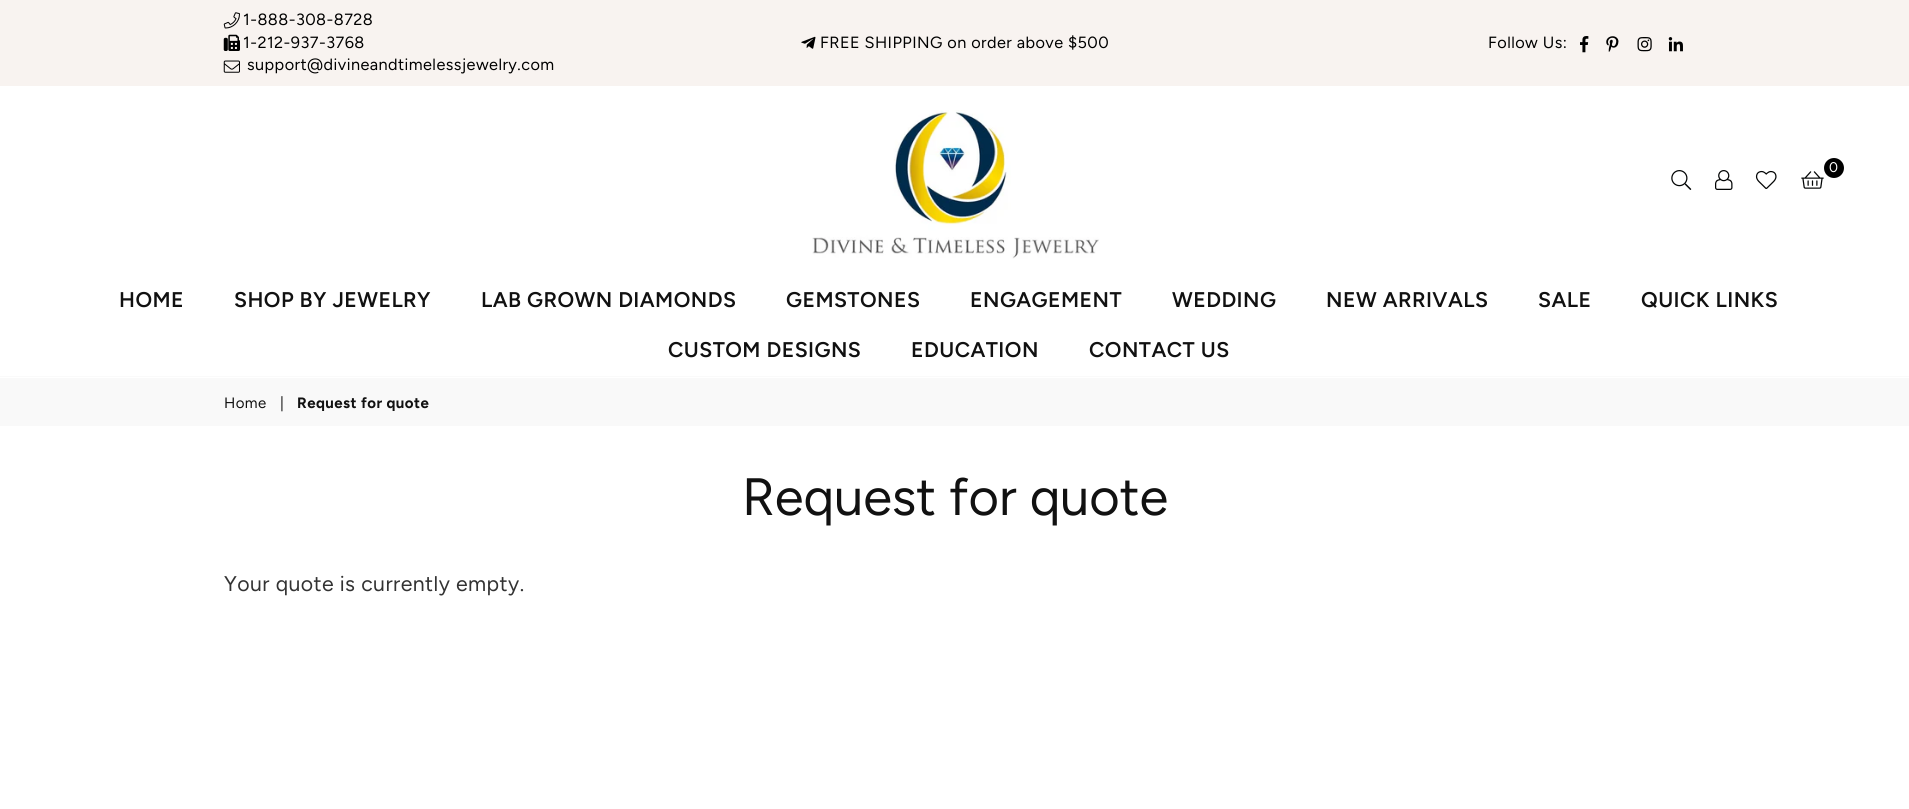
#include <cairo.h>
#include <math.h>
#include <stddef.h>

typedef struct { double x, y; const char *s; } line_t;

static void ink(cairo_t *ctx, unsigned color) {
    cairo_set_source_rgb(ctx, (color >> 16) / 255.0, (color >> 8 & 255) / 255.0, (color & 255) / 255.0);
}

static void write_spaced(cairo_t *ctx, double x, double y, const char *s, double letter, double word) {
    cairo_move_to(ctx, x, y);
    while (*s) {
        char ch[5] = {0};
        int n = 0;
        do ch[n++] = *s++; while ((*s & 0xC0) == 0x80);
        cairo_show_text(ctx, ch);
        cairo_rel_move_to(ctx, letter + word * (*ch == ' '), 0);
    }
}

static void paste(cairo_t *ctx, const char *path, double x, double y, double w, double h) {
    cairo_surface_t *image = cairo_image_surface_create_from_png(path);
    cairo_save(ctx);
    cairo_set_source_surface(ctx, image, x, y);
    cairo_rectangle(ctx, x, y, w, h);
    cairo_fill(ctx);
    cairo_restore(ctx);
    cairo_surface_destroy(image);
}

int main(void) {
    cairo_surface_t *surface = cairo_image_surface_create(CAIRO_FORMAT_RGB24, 1909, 809);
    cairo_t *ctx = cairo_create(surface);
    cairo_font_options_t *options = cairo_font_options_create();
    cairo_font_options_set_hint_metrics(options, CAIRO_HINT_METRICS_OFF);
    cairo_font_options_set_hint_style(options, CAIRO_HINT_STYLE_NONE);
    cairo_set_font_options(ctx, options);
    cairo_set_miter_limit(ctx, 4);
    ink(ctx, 0xFFFFFF);
    cairo_paint(ctx);
    ink(ctx, 0xF8F3F0);
    cairo_rectangle(ctx, 0, 0, 1909, 86);
    cairo_fill(ctx);
    paste(ctx, "media/1.png", 223, 12, 17, 17);
    cairo_select_font_face(ctx, "Figtree", CAIRO_FONT_SLANT_NORMAL, CAIRO_FONT_WEIGHT_NORMAL);
    cairo_set_font_size(ctx, 16.25);
    ink(ctx, 0x000000);
    write_spaced(ctx, 243, 25, "1-888-308-8728", 0.45, 0);
    paste(ctx, "media/2.png", 223, 34, 17, 17);
    write_spaced(ctx, 243, 48, "1-212-937-3768", 0.45, 0);
    paste(ctx, "media/3.png", 223, 60, 17, 13);
    write_spaced(ctx, 247, 70, "support@divineandtimelessjewelry.com", 0.45, 0);
    paste(ctx, "media/4.png", 801, 36, 15, 13);
    write_spaced(ctx, 820, 48, "FREE SHIPPING on order above $500", 0.45, 0);
    write_spaced(ctx, 1488, 48, "Follow Us:", 0.45, 0);
    paste(ctx, "media/5.png", 1580, 36, 9, 17);
    paste(ctx, "media/6.png", 1606, 36, 13, 16);
    paste(ctx, "media/7.png", 1637, 37, 15, 15);
    paste(ctx, "media/8.png", 1668, 37, 15, 15);
    ink(ctx, 0xFAFAFA);
    cairo_rectangle(ctx, 0, 376, 1909, 1);
    cairo_fill(ctx);
    paste(ctx, "media/9.png", 812, 110, 288, 149);
    ink(ctx, 0x000000);
    cairo_arc(ctx, 1834, 168, 10, 0, 2 * M_PI);
    cairo_fill(ctx);
    cairo_set_font_size(ctx, 14);
    ink(ctx, 0xFFFFFF);
    write_spaced(ctx, 1829, 172, "0", 0.45, 0);
    paste(ctx, "media/10.png", 1801, 171, 23, 18);
    paste(ctx, "media/11.png", 1671, 170, 21, 20);
    paste(ctx, "media/12.png", 1715, 170, 18, 20);
    paste(ctx, "media/13.png", 1755, 170, 22, 19);
    cairo_select_font_face(ctx, "Figtree SemiBold", CAIRO_FONT_SLANT_NORMAL, CAIRO_FONT_WEIGHT_NORMAL);
    cairo_set_font_size(ctx, 21.25);
    ink(ctx, 0x111111);
    {
        static const line_t items[] = {
            {119, 307, "HOME"},
            {234, 307, "SHOP BY JEWELRY"},
            {481, 307, "LAB GROWN DIAMONDS"},
            {786, 307, "GEMSTONES"},
            {970, 307, "ENGAGEMENT"},
            {1172, 307, "WEDDING"},
            {1326, 307, "NEW ARRIVALS"},
            {1538, 307, "SALE"},
            {1641, 307, "QUICK LINKS"},
            {668, 357, "CUSTOM DESIGNS"},
            {911, 357, "EDUCATION"},
            {1089, 357, "CONTACT US"},
        };
        for (size_t i = 0; i < sizeof items / sizeof *items; i++) {
            write_spaced(ctx, items[i].x, items[i].y, items[i].s, 0.45, 0);
        }
    }
    ink(ctx, 0xF9F9F9);
    cairo_rectangle(ctx, 0, 378, 1909, 48);
    cairo_fill(ctx);
    cairo_select_font_face(ctx, "Figtree", CAIRO_FONT_SLANT_NORMAL, CAIRO_FONT_WEIGHT_NORMAL);
    cairo_set_font_size(ctx, 15);
    ink(ctx, 0x111111);
    write_spaced(ctx, 224, 408, "Home", 0.45, 0);
    write_spaced(ctx, 280, 408, "|", 0.45, 0);
    cairo_select_font_face(ctx, "Figtree", CAIRO_FONT_SLANT_NORMAL, CAIRO_FONT_WEIGHT_BOLD);
    write_spaced(ctx, 297, 408, "Request for quote", 0.45, 0);
    cairo_select_font_face(ctx, "Figtree", CAIRO_FONT_SLANT_NORMAL, CAIRO_FONT_WEIGHT_NORMAL);
    cairo_set_font_size(ctx, 52.5);
    cairo_move_to(ctx, 742, 515);
    cairo_show_text(ctx, "Request for quote");
    cairo_set_font_size(ctx, 21.25);
    ink(ctx, 0x333333);
    write_spaced(ctx, 224, 591, "Your quote is currently empty.", 0.45, 0);
    cairo_surface_write_to_png(surface, "image.png");
    cairo_font_options_destroy(options);
    cairo_destroy(ctx);
    cairo_surface_destroy(surface);
    return 0;
}
